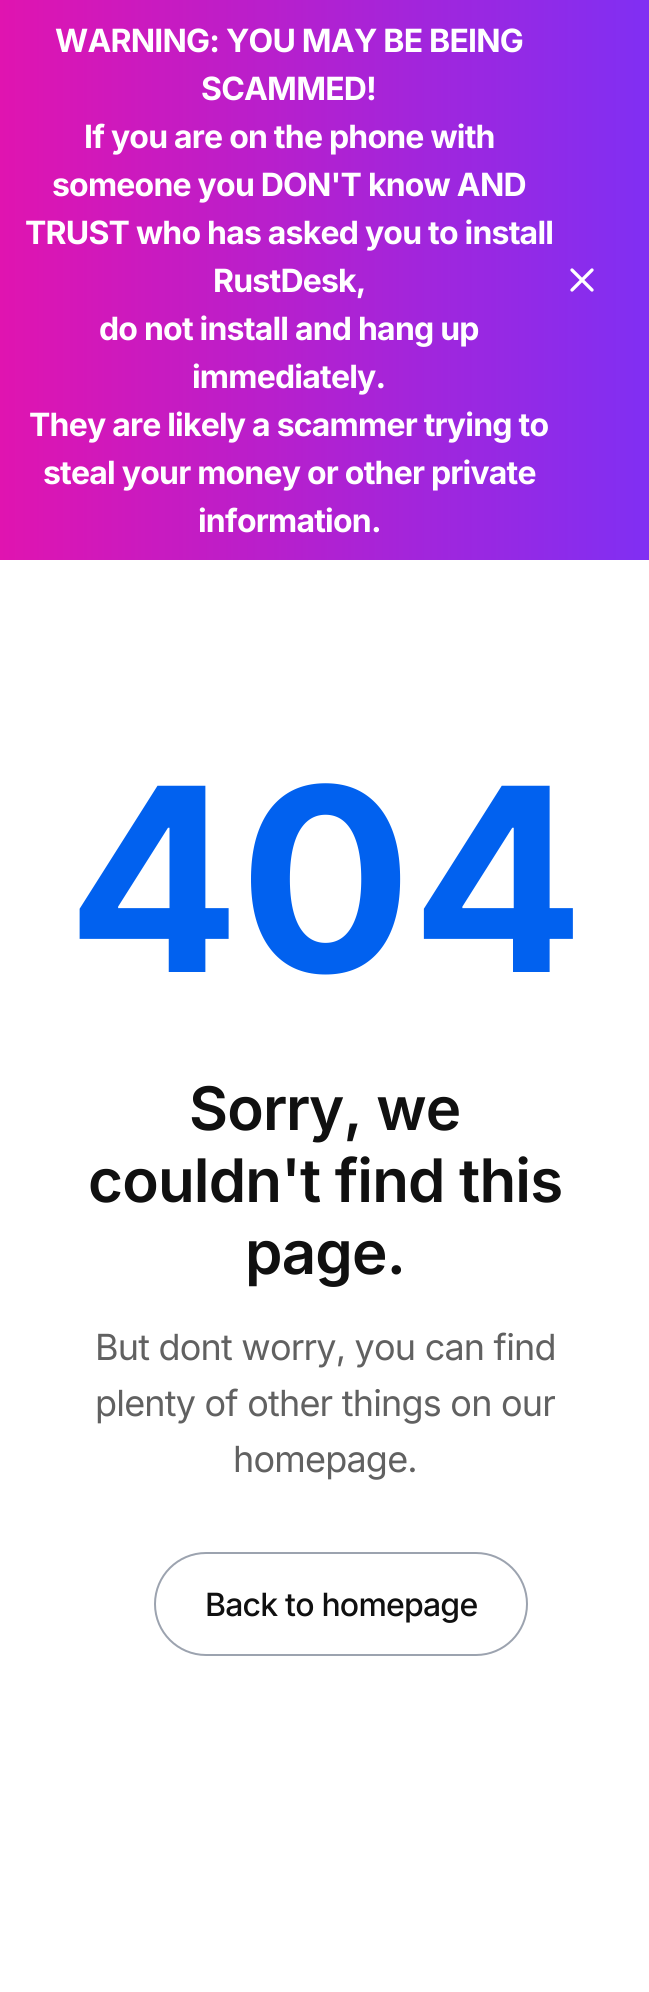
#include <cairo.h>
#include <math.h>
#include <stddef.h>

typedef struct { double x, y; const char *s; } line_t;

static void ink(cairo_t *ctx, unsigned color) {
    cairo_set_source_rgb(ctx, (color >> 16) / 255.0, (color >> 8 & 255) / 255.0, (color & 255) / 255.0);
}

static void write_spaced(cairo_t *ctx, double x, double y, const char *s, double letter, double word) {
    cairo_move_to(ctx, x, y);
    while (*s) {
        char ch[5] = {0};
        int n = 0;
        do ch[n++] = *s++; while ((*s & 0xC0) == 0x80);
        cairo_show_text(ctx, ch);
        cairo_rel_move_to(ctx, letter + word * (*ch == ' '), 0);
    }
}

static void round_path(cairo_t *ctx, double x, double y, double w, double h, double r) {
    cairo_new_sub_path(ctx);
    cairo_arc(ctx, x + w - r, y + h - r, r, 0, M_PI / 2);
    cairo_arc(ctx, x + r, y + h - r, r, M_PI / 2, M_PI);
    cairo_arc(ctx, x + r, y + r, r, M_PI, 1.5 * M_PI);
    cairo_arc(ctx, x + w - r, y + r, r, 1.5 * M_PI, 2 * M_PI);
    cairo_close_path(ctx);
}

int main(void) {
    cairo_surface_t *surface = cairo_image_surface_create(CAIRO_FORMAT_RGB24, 649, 1992);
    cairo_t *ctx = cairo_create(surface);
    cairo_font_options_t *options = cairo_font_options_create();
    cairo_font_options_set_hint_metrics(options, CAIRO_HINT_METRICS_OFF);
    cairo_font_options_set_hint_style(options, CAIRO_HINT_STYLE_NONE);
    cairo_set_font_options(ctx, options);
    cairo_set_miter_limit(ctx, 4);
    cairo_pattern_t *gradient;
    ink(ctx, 0xFFFFFF);
    cairo_paint(ctx);
    gradient = cairo_pattern_create_linear(0, 280, 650, 280);
    cairo_pattern_add_color_stop_rgba(gradient, 0, 0.878, 0.078, 0.69, 1);
    cairo_pattern_add_color_stop_rgba(gradient, 1, 0.502, 0.184, 0.953, 1);
    cairo_set_source(ctx, gradient);
    cairo_pattern_destroy(gradient);
    cairo_rectangle(ctx, 0, 0, 649, 560);
    cairo_fill(ctx);
    cairo_select_font_face(ctx, "Inter", CAIRO_FONT_SLANT_NORMAL, CAIRO_FONT_WEIGHT_BOLD);
    cairo_set_font_size(ctx, 32);
    ink(ctx, 0xFFFFFF);
    {
        static const line_t items[] = {
            {55, 52, "WARNING: YOU MAY BE BEING"},
            {201, 100, "SCAMMED!"},
            {84, 148, "If you are on the phone with"},
            {52, 196, "someone you DON'T know AND"},
            {25, 244, "TRUST who has asked you to install"},
            {213, 292, "RustDesk,"},
            {99, 340, "do not install and hang up"},
            {192, 388, "immediately."},
            {29, 436, "They are likely a scammer trying to"},
            {43, 484, "steal your money or other private"},
            {198, 532, "information."},
        };
        for (size_t i = 0; i < sizeof items / sizeof *items; i++) {
            write_spaced(ctx, items[i].x, items[i].y, items[i].s, -0.8, 0);
        }
    }
    cairo_new_path(ctx);
    cairo_move_to(ctx, 592, 270);
    cairo_line_to(ctx, 572, 290);
    cairo_move_to(ctx, 572, 270);
    cairo_line_to(ctx, 592, 290);
    cairo_set_line_width(ctx, 3.3);
    cairo_set_line_cap(ctx, CAIRO_LINE_CAP_ROUND);
    cairo_set_line_join(ctx, CAIRO_LINE_JOIN_ROUND);
    cairo_stroke(ctx);
    cairo_set_font_size(ctx, 256);
    ink(ctx, 0x0161EF);
    write_spaced(ctx, 67, 972, "404", -0.8, 0);
    cairo_select_font_face(ctx, "Inter SemiBold", CAIRO_FONT_SLANT_NORMAL, CAIRO_FONT_WEIGHT_NORMAL);
    cairo_set_font_size(ctx, 60);
    ink(ctx, 0x101010);
    {
        static const line_t items[] = {
            {189, 1130, "Sorry, we"},
            {88, 1202, "couldn't find this"},
            {245, 1274, "page."},
        };
        for (size_t i = 0; i < sizeof items / sizeof *items; i++) {
            write_spaced(ctx, items[i].x, items[i].y, items[i].s, -0.8, 0);
        }
    }
    cairo_select_font_face(ctx, "Inter", CAIRO_FONT_SLANT_NORMAL, CAIRO_FONT_WEIGHT_NORMAL);
    cairo_set_font_size(ctx, 36);
    ink(ctx, 0x616161);
    {
        static const line_t items[] = {
            {95, 1360, "But dont worry, you can find"},
            {95, 1416, "plenty of other things on our"},
            {233, 1472, "homepage."},
        };
        for (size_t i = 0; i < sizeof items / sizeof *items; i++) {
            write_spaced(ctx, items[i].x, items[i].y, items[i].s, -0.8, 0);
        }
    }
    round_path(ctx, 155, 1553, 372, 102, 51);
    ink(ctx, 0x9CA3AF);
    cairo_set_line_width(ctx, 2);
    cairo_set_line_cap(ctx, CAIRO_LINE_CAP_BUTT);
    cairo_set_line_join(ctx, CAIRO_LINE_JOIN_MITER);
    cairo_stroke(ctx);
    cairo_select_font_face(ctx, "Inter Medium", CAIRO_FONT_SLANT_NORMAL, CAIRO_FONT_WEIGHT_NORMAL);
    cairo_set_font_size(ctx, 32);
    ink(ctx, 0x101010);
    write_spaced(ctx, 205, 1616, "Back to homepage", -0.8, 0);
    cairo_surface_write_to_png(surface, "image.png");
    cairo_font_options_destroy(options);
    cairo_destroy(ctx);
    cairo_surface_destroy(surface);
    return 0;
}
